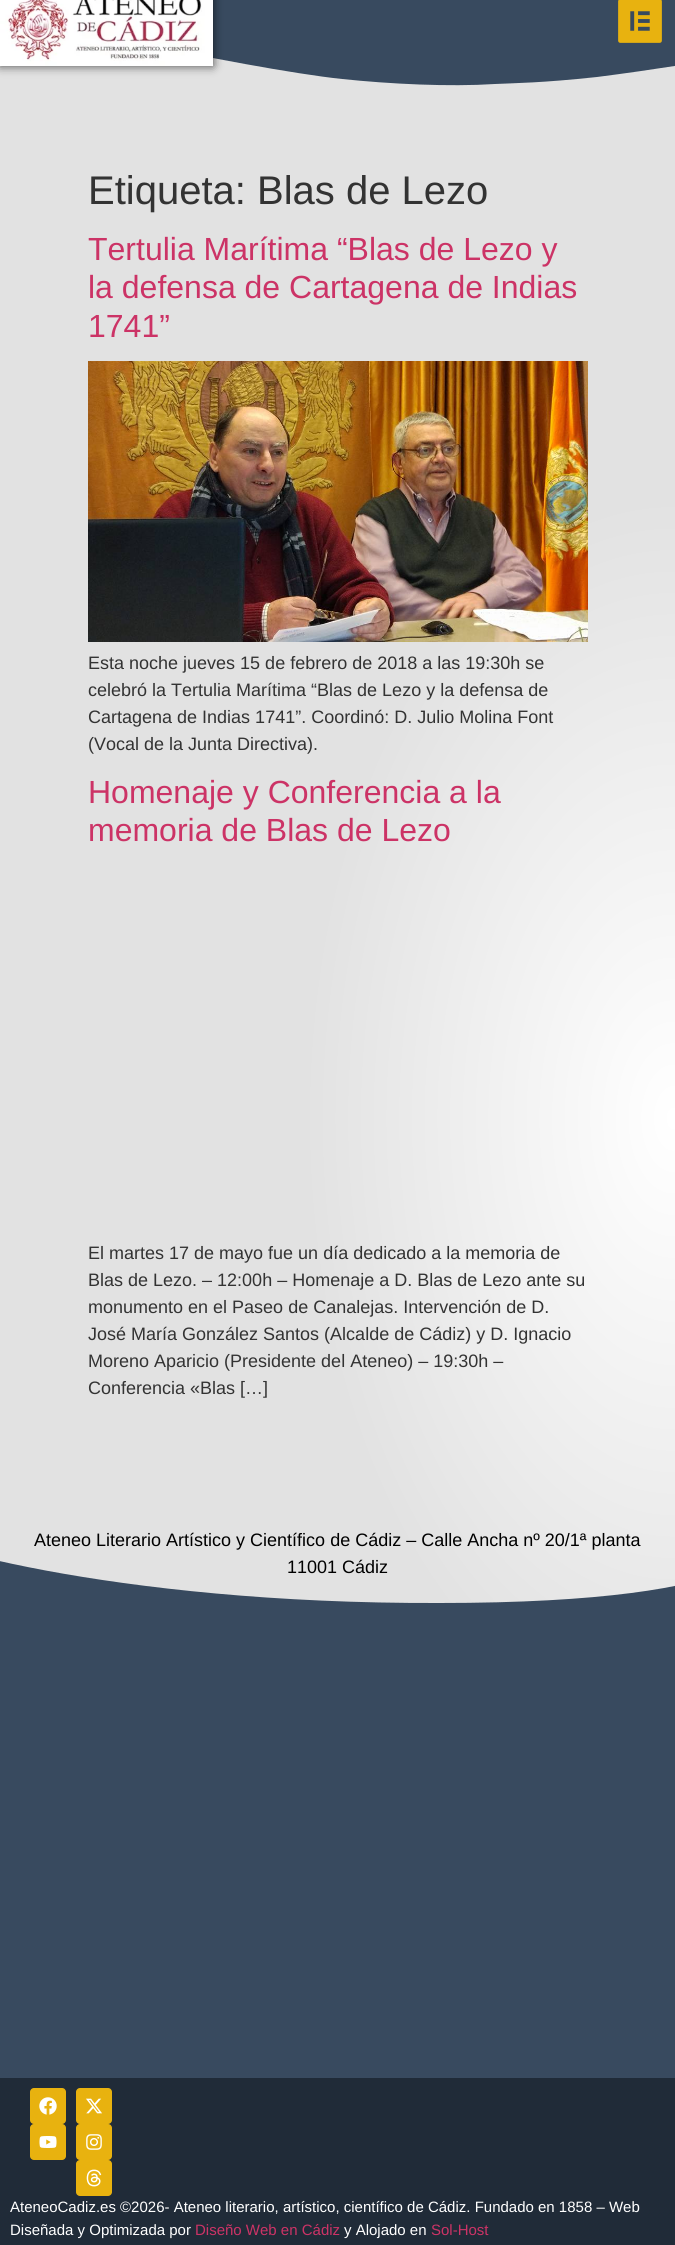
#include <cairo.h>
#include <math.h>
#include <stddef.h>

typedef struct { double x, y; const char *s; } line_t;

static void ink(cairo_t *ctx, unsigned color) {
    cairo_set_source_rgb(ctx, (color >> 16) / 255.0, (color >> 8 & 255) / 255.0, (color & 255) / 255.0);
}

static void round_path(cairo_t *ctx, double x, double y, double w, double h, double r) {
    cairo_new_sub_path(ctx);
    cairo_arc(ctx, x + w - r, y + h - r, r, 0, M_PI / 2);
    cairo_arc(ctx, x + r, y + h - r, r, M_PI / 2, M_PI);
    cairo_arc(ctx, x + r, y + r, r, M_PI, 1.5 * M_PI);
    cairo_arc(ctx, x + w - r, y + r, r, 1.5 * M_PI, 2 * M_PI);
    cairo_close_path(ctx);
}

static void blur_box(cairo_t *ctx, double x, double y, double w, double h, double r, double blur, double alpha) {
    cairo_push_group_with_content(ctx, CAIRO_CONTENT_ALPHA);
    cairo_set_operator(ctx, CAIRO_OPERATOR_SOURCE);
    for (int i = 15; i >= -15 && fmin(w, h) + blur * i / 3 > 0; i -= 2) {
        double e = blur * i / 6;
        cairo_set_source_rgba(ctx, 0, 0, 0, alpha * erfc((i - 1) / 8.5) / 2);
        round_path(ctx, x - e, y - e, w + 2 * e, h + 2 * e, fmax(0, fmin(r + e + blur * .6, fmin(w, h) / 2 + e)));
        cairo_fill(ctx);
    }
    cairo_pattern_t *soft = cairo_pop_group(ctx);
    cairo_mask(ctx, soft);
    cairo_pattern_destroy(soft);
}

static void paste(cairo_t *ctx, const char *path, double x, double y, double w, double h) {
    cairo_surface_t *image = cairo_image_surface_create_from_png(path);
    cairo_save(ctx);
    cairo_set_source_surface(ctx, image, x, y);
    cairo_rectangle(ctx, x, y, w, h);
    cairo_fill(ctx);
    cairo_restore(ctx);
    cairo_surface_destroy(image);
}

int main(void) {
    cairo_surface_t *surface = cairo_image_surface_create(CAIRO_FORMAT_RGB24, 675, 2245);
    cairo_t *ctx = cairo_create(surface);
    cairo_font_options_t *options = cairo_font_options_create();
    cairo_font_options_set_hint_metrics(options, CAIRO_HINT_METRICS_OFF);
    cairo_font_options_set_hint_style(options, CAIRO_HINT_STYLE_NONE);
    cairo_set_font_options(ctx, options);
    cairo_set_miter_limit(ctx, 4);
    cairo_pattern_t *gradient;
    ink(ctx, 0xFFFFFF);
    cairo_paint(ctx);
    gradient = cairo_pattern_create_radial(0, 0, 0, 0, 0, 1);
    cairo_pattern_set_matrix(gradient, &(cairo_matrix_t){1.0 / 955, 0, 0, 1.0 / 1602, -1.0 * 675 / 955, -1.0 * 1119 / 1602});
    cairo_pattern_add_color_stop_rgba(gradient, 0, 1, 1, 1, 1);
    cairo_pattern_add_color_stop_rgba(gradient, 0.39, 0.886, 0.886, 0.886, 1);
    cairo_set_source(ctx, gradient);
    cairo_pattern_destroy(gradient);
    cairo_rectangle(ctx, 0, 58, 675, 1545);
    cairo_fill(ctx);
    ink(ctx, 0x384A5F);
    cairo_new_path(ctx);
    cairo_move_to(ctx, -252, -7);
    cairo_curve_to(ctx, -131, -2, -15, 11, 139, 43);
    cairo_curve_to(ctx, 199, 56, 294, 74, 342, 79);
    cairo_curve_to(ctx, 390, 84, 449, 87, 495, 84);
    cairo_curve_to(ctx, 516, 83, 541, 83, 597, 77);
    cairo_curve_to(ctx, 652, 70, 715, 60, 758, 52);
    cairo_curve_to(ctx, 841, 36, 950, 30, 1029, 29);
    cairo_curve_to(ctx, 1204, 28, 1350, 60, 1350, 60);
    cairo_line_to(ctx, 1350, -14);
    cairo_line_to(ctx, -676, -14);
    cairo_line_to(ctx, -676, 21);
    cairo_curve_to(ctx, -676, 21, -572, 1, -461, -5);
    cairo_curve_to(ctx, -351, -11, -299, -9, -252, -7);
    cairo_close_path(ctx);
    cairo_fill(ctx);
    ink(ctx, 0x000000);
    blur_box(ctx, 0, -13, 213, 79, 0, 5, 0.67);
    paste(ctx, "media/1.png", 0, 0, 213, 66);
    paste(ctx, "media/2.png", 618, 0, 44, 43);
    cairo_select_font_face(ctx, "Liberation Sans", CAIRO_FONT_SLANT_NORMAL, CAIRO_FONT_WEIGHT_NORMAL);
    cairo_set_font_size(ctx, 40);
    ink(ctx, 0x333333);
    cairo_move_to(ctx, 88, 204);
    cairo_show_text(ctx, "Etiqueta: Blas de Lezo");
    cairo_set_font_size(ctx, 32);
    ink(ctx, 0xCC3366);
    {
        static const line_t items[] = {
            {88, 260, "Tertulia Marítima “Blas de Lezo y"},
            {88, 298, "la defensa de Cartagena de Indias"},
            {88, 337, "1741”"},
        };
        for (size_t i = 0; i < sizeof items / sizeof *items; i++) {
            cairo_move_to(ctx, items[i].x, items[i].y);
            cairo_show_text(ctx, items[i].s);
        }
    }
    paste(ctx, "media/3.png", 88, 361, 500, 281);
    cairo_set_font_size(ctx, 18);
    ink(ctx, 0x333333);
    {
        static const line_t items[] = {
            {88, 669, "Esta noche jueves 15 de febrero de 2018 a las 19:30h se"},
            {88, 696, "celebró la Tertulia Marítima “Blas de Lezo y la defensa de"},
            {88, 723, "Cartagena de Indias 1741”. Coordinó: D. Julio Molina Font"},
            {88, 750, "(Vocal de la Junta Directiva)."},
        };
        for (size_t i = 0; i < sizeof items / sizeof *items; i++) {
            cairo_move_to(ctx, items[i].x, items[i].y);
            cairo_show_text(ctx, items[i].s);
        }
    }
    cairo_set_font_size(ctx, 32);
    ink(ctx, 0xCC3366);
    cairo_move_to(ctx, 88, 803);
    cairo_show_text(ctx, "Homenaje y Conferencia a la");
    cairo_move_to(ctx, 88, 841);
    cairo_show_text(ctx, "memoria de Blas de Lezo");
    cairo_set_font_size(ctx, 18);
    ink(ctx, 0x333333);
    {
        static const line_t items[] = {
            {88, 1259, "El martes 17 de mayo fue un día dedicado a la memoria de"},
            {88, 1286, "Blas de Lezo. – 12:00h – Homenaje a D. Blas de Lezo ante su"},
            {88, 1313, "monumento en el Paseo de Canalejas. Intervención de D."},
            {88, 1340, "José María González Santos (Alcalde de Cádiz) y D. Ignacio"},
            {88, 1367, "Moreno Aparicio (Presidente del Ateneo) – 19:30h –"},
            {88, 1394, "Conferencia «Blas […]"},
        };
        for (size_t i = 0; i < sizeof items / sizeof *items; i++) {
            cairo_move_to(ctx, items[i].x, items[i].y);
            cairo_show_text(ctx, items[i].s);
        }
    }
    ink(ctx, 0x000000);
    cairo_move_to(ctx, 34, 1546);
    cairo_show_text(ctx, "Ateneo Literario Artístico y Científico de Cádiz – Calle Ancha nº 20/1ª planta");
    ink(ctx, 0x384A5F);
    cairo_new_path(ctx);
    cairo_move_to(ctx, 439, 1603);
    cairo_curve_to(ctx, 110, 1604, -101, 1541, -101, 1526);
    cairo_line_to(ctx, -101, 1606);
    cairo_line_to(ctx, 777, 1606);
    cairo_line_to(ctx, 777, 1526);
    cairo_curve_to(ctx, 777, 1541, 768, 1603, 439, 1603);
    cairo_close_path(ctx);
    cairo_fill(ctx);
    ink(ctx, 0x000000);
    cairo_move_to(ctx, 287, 1573);
    cairo_show_text(ctx, "11001 Cádiz");
    ink(ctx, 0x384A5F);
    cairo_rectangle(ctx, 0, 1606, 675, 472);
    cairo_fill(ctx);
    ink(ctx, 0x202B38);
    cairo_rectangle(ctx, 0, 2078, 675, 167);
    cairo_fill(ctx);
    ink(ctx, 0xE8B20F);
    round_path(ctx, 30, 2088, 36, 36, 4);
    cairo_fill(ctx);
    paste(ctx, "media/4.png", 39, 2097, 18, 18);
    round_path(ctx, 76, 2088, 36, 36, 4);
    cairo_fill(ctx);
    paste(ctx, "media/5.png", 86, 2098, 16, 16);
    round_path(ctx, 30, 2124, 36, 36, 4);
    cairo_fill(ctx);
    paste(ctx, "media/6.png", 39, 2136, 18, 12);
    round_path(ctx, 76, 2124, 36, 36, 4);
    cairo_fill(ctx);
    paste(ctx, "media/7.png", 86, 2134, 16, 16);
    round_path(ctx, 76, 2160, 36, 36, 4);
    cairo_fill(ctx);
    paste(ctx, "media/8.png", 86, 2169, 16, 18);
    cairo_set_font_size(ctx, 15);
    ink(ctx, 0xFFFFFF);
    cairo_move_to(ctx, 10, 2212);
    cairo_show_text(ctx, "AteneoCadiz.es ©2026- Ateneo literario, artístico, científico de Cádiz. Fundado en 1858 – Web");
    cairo_move_to(ctx, 10, 2235);
    cairo_show_text(ctx, "Diseñada y Optimizada por");
    ink(ctx, 0xCC3366);
    cairo_move_to(ctx, 195, 2235);
    cairo_show_text(ctx, "Diseño Web en Cádiz");
    ink(ctx, 0xFFFFFF);
    cairo_move_to(ctx, 344, 2235);
    cairo_show_text(ctx, "y Alojado en");
    ink(ctx, 0xCC3366);
    cairo_move_to(ctx, 431, 2235);
    cairo_show_text(ctx, "Sol-Host");
    cairo_surface_write_to_png(surface, "image.png");
    cairo_font_options_destroy(options);
    cairo_destroy(ctx);
    cairo_surface_destroy(surface);
    return 0;
}
